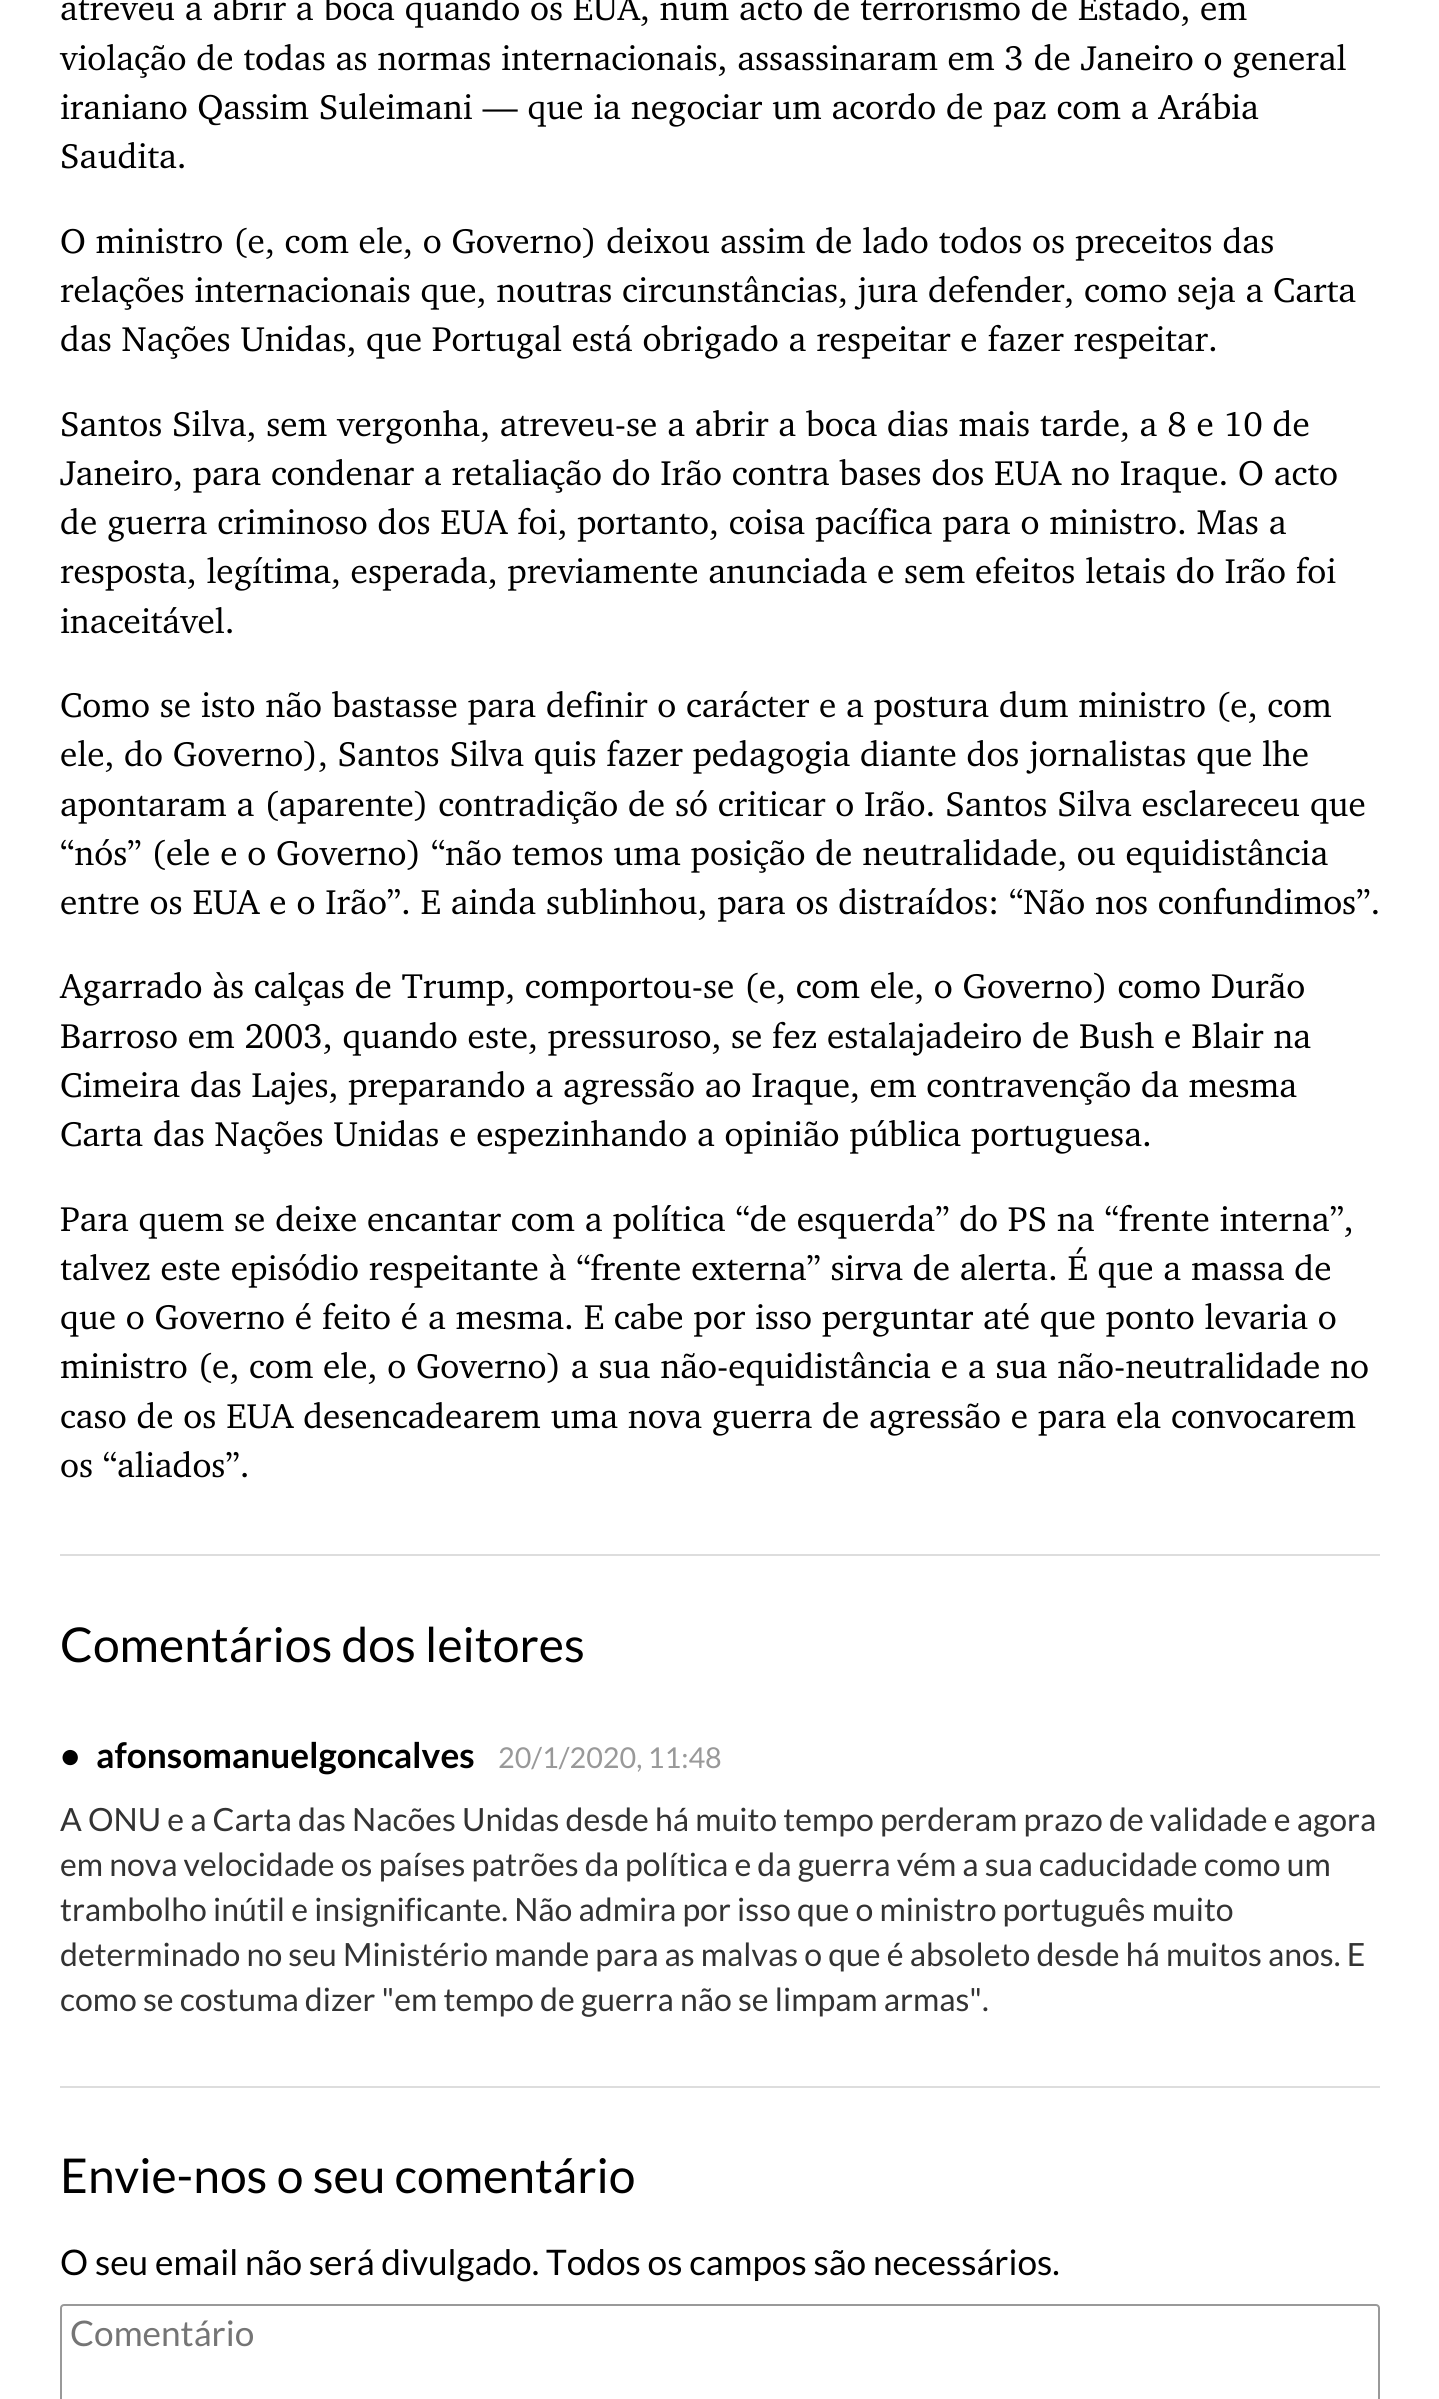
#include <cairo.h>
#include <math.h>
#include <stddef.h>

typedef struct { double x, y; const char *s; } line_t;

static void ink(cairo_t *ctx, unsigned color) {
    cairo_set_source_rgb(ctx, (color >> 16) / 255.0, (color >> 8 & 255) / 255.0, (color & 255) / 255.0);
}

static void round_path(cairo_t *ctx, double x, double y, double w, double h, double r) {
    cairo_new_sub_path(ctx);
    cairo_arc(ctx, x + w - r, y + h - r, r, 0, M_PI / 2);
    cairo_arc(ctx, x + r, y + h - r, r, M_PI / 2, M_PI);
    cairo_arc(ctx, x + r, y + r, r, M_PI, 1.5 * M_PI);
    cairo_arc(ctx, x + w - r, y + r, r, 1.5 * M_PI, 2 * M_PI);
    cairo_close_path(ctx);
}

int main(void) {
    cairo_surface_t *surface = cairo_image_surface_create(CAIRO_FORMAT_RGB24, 1439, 2399);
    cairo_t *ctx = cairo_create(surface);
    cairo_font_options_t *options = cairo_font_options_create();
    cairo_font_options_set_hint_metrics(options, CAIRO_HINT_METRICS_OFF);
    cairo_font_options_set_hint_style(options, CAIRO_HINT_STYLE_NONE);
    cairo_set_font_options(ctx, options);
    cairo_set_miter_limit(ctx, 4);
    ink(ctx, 0xFFFFFF);
    cairo_paint(ctx);
    cairo_select_font_face(ctx, "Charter", CAIRO_FONT_SLANT_NORMAL, CAIRO_FONT_WEIGHT_NORMAL);
    cairo_set_font_size(ctx, 35.2);
    ink(ctx, 0x000000);
    {
        static const line_t items[] = {
            {60, 20, "atreveu a abrir a boca quando os EUA, num acto de terrorismo de Estado, em"},
            {60, 70, "violação de todas as normas internacionais, assassinaram em 3 de Janeiro o general"},
            {60, 119, "iraniano Qassim Suleimani — que ia negociar um acordo de paz com a Arábia"},
            {60, 168, "Saudita."},
            {60, 253, "O ministro (e, com ele, o Governo) deixou assim de lado todos os preceitos das"},
            {60, 302, "relações internacionais que, noutras circunstâncias, jura defender, como seja a Carta"},
            {60, 351, "das Nações Unidas, que Portugal está obrigado a respeitar e fazer respeitar."},
            {60, 436, "Santos Silva, sem vergonha, atreveu-se a abrir a boca dias mais tarde, a 8 e 10 de"},
            {60, 485, "Janeiro, para condenar a retaliação do Irão contra bases dos EUA no Iraque. O acto"},
            {60, 534, "de guerra criminoso dos EUA foi, portanto, coisa pacífica para o ministro. Mas a"},
            {60, 583, "resposta, legítima, esperada, previamente anunciada e sem efeitos letais do Irão foi"},
            {60, 633, "inaceitável."},
            {60, 717, "Como se isto não bastasse para definir o carácter e a postura dum ministro (e, com"},
            {60, 766, "ele, do Governo), Santos Silva quis fazer pedagogia diante dos jornalistas que lhe"},
            {60, 816, "apontaram a (aparente) contradição de só criticar o Irão. Santos Silva esclareceu que"},
            {60, 865, "“nós” (ele e o Governo) “não temos uma posição de neutralidade, ou equidistância"},
            {60, 914, "entre os EUA e o Irão”. E ainda sublinhou, para os distraídos: “Não nos confundimos”."},
            {60, 998, "Agarrado às calças de Trump, comportou-se (e, com ele, o Governo) como Durão"},
            {60, 1048, "Barroso em 2003, quando este, pressuroso, se fez estalajadeiro de Bush e Blair na"},
            {60, 1097, "Cimeira das Lajes, preparando a agressão ao Iraque, em contravenção da mesma"},
            {60, 1146, "Carta das Nações Unidas e espezinhando a opinião pública portuguesa."},
            {60, 1231, "Para quem se deixe encantar com a política “de esquerda” do PS na “frente interna”,"},
            {60, 1280, "talvez este episódio respeitante à “frente externa” sirva de alerta. É que a massa de"},
            {60, 1329, "que o Governo é feito é a mesma. E cabe por isso perguntar até que ponto levaria o"},
            {60, 1378, "ministro (e, com ele, o Governo) a sua não-equidistância e a sua não-neutralidade no"},
            {60, 1428, "caso de os EUA desencadearem uma nova guerra de agressão e para ela convocarem"},
            {60, 1477, "os “aliados”."},
        };
        for (size_t i = 0; i < sizeof items / sizeof *items; i++) {
            cairo_move_to(ctx, items[i].x, items[i].y);
            cairo_show_text(ctx, items[i].s);
        }
    }
    ink(ctx, 0xDDDDDD);
    cairo_rectangle(ctx, 60, 1554, 1320, 2);
    cairo_fill(ctx);
    cairo_select_font_face(ctx, "Lato", CAIRO_FONT_SLANT_NORMAL, CAIRO_FONT_WEIGHT_NORMAL);
    cairo_set_font_size(ctx, 48);
    ink(ctx, 0x000000);
    cairo_move_to(ctx, 60, 1662);
    cairo_show_text(ctx, "Comentários dos leitores");
    cairo_select_font_face(ctx, "Lato", CAIRO_FONT_SLANT_NORMAL, CAIRO_FONT_WEIGHT_BOLD);
    cairo_set_font_size(ctx, 35.2);
    cairo_move_to(ctx, 60, 1768);
    cairo_show_text(ctx, "•");
    cairo_move_to(ctx, 96, 1768);
    cairo_show_text(ctx, "afonsomanuelgoncalves");
    cairo_select_font_face(ctx, "Lato", CAIRO_FONT_SLANT_NORMAL, CAIRO_FONT_WEIGHT_NORMAL);
    cairo_set_font_size(ctx, 28.75);
    ink(ctx, 0x999999);
    cairo_move_to(ctx, 498, 1768);
    cairo_show_text(ctx, "20/1/2020, 11:48");
    cairo_set_font_size(ctx, 32);
    ink(ctx, 0x333333);
    {
        static const line_t items[] = {
            {60, 1831, "A ONU e a Carta das Nacões Unidas desde há muito tempo perderam prazo de validade e agora"},
            {60, 1876, "em nova velocidade os países patrões da política e da guerra vém a sua caducidade como um"},
            {60, 1921, "trambolho inútil e insignificante. Não admira por isso que o ministro português muito"},
            {60, 1966, "determinado no seu Ministério mande para as malvas o que é absoleto desde há muitos anos. E"},
            {60, 2011, "como se costuma dizer \"em tempo de guerra não se limpam armas\"."},
        };
        for (size_t i = 0; i < sizeof items / sizeof *items; i++) {
            cairo_move_to(ctx, items[i].x, items[i].y);
            cairo_show_text(ctx, items[i].s);
        }
    }
    ink(ctx, 0xDDDDDD);
    cairo_rectangle(ctx, 60, 2086, 1320, 2);
    cairo_fill(ctx);
    cairo_set_font_size(ctx, 48);
    ink(ctx, 0x000000);
    cairo_move_to(ctx, 60, 2193);
    cairo_show_text(ctx, "Envie-nos o seu comentário");
    cairo_set_font_size(ctx, 35.2);
    cairo_move_to(ctx, 60, 2275);
    cairo_show_text(ctx, "O seu email não será divulgado. Todos os campos são necessários.");
    round_path(ctx, 61, 2305, 1318, 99, 3);
    ink(ctx, 0x999999);
    cairo_stroke(ctx);
    ink(ctx, 0x757575);
    cairo_move_to(ctx, 70, 2346);
    cairo_show_text(ctx, "Comentário");
    cairo_surface_write_to_png(surface, "image.png");
    cairo_font_options_destroy(options);
    cairo_destroy(ctx);
    cairo_surface_destroy(surface);
    return 0;
}
